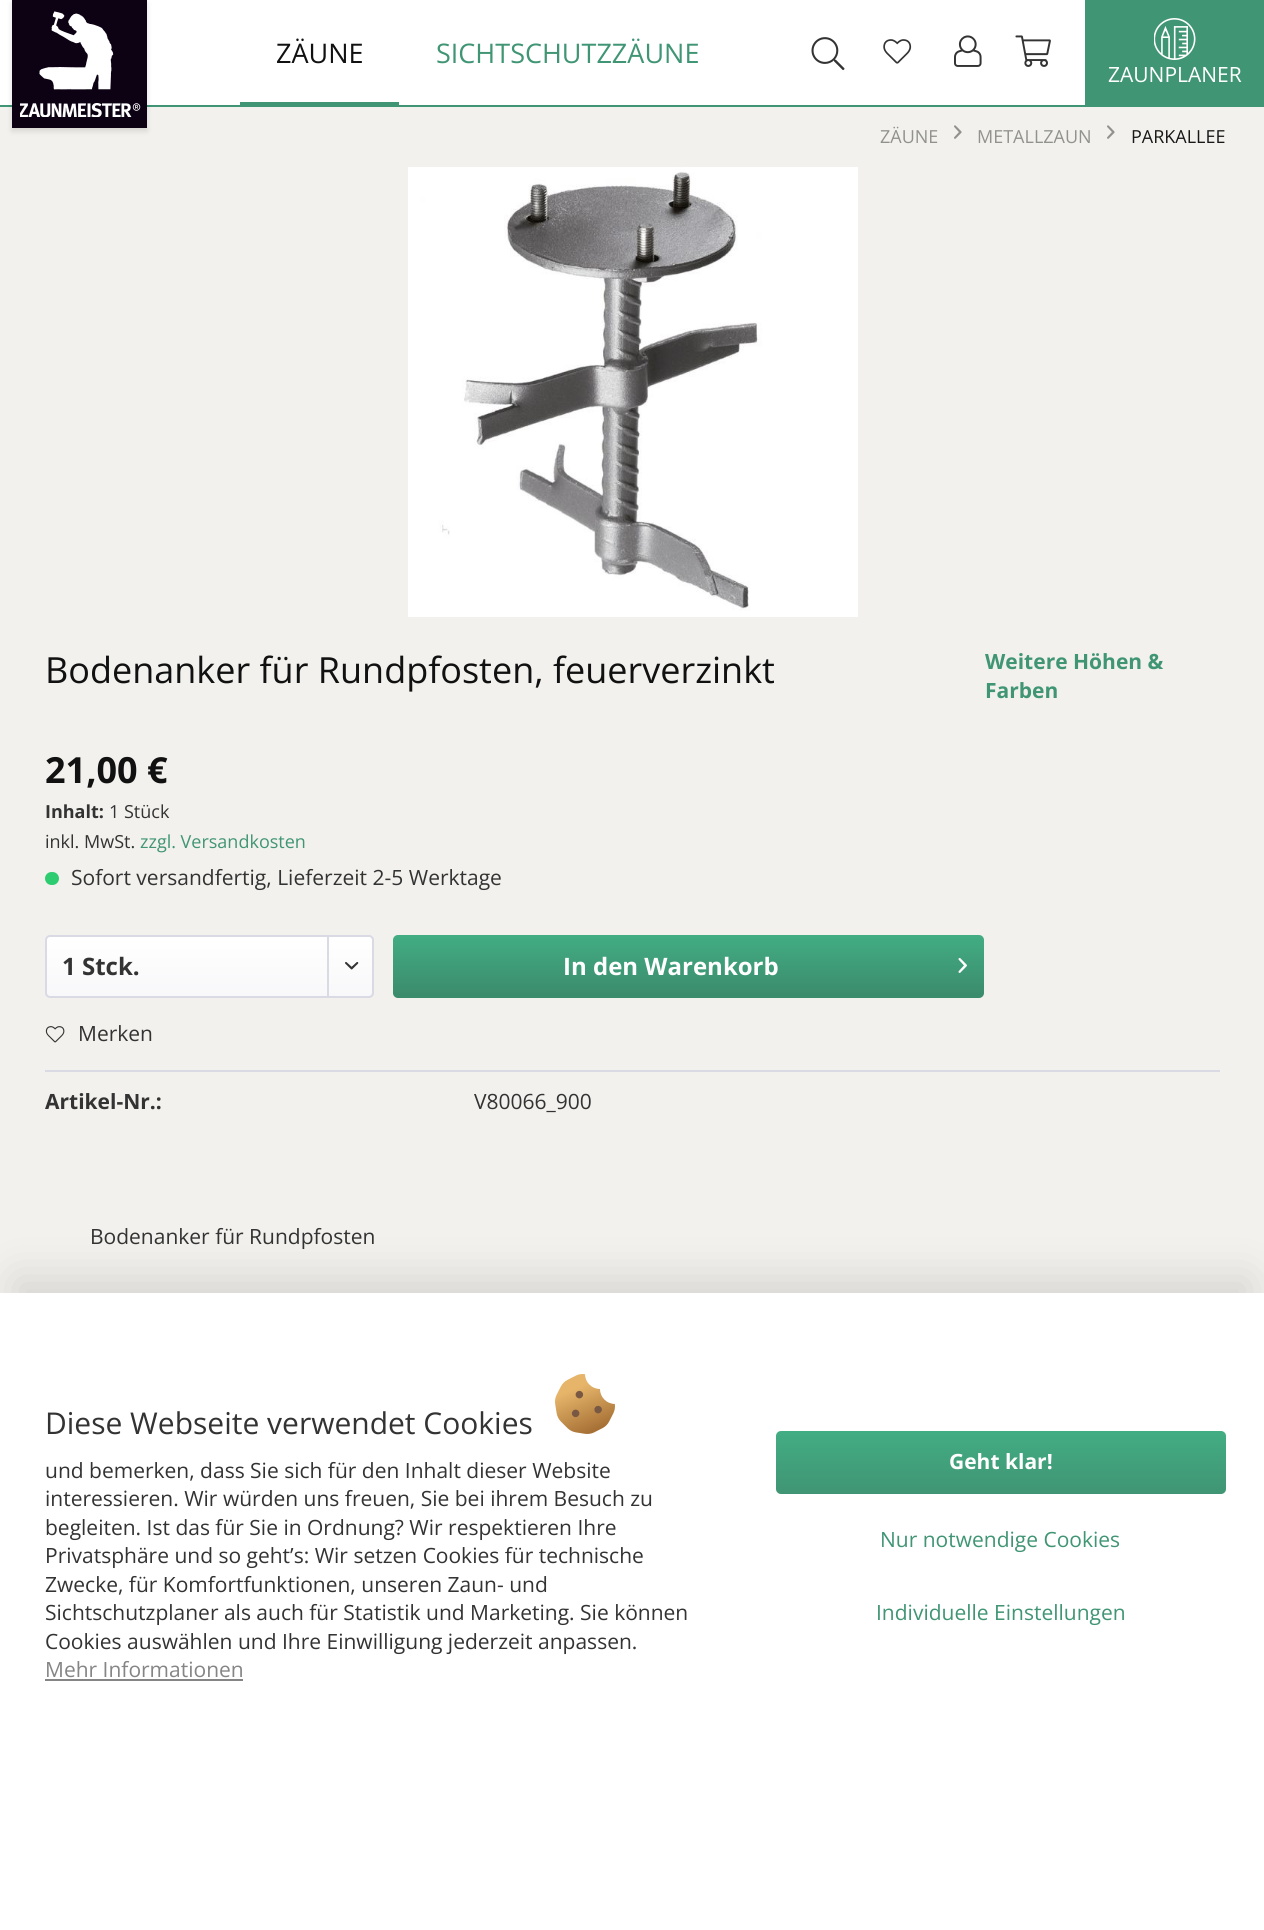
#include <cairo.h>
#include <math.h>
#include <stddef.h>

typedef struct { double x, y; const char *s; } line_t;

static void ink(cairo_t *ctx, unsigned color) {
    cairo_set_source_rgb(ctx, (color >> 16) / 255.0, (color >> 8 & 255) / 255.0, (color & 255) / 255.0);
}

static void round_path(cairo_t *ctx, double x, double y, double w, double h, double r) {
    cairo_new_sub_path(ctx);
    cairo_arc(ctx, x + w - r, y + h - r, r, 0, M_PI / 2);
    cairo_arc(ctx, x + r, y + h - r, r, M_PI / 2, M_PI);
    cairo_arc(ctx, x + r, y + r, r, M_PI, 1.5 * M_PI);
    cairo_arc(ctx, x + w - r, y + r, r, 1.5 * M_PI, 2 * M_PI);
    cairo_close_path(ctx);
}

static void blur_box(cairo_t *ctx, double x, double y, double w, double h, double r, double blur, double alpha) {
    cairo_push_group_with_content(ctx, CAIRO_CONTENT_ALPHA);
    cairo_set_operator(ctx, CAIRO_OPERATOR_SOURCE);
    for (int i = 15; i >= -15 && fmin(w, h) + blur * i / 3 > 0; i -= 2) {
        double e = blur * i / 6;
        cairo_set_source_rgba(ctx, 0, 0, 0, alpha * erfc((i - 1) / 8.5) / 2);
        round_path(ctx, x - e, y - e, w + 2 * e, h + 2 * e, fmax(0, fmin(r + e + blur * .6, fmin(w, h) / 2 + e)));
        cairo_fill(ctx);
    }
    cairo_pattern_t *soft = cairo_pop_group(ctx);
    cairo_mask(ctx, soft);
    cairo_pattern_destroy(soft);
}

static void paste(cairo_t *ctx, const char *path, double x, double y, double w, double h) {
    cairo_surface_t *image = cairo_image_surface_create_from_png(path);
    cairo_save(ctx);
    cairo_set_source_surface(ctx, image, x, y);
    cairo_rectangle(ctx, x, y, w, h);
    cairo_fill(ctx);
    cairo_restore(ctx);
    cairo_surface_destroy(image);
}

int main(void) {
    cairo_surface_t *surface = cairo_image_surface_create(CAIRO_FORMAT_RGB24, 1264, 1930);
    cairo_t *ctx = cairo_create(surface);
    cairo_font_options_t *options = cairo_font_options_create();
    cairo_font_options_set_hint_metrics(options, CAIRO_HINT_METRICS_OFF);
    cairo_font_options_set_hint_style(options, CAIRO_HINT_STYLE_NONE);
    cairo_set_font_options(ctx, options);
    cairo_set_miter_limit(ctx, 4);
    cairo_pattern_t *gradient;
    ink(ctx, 0xF2F1ED);
    cairo_paint(ctx);
    ink(ctx, 0xFFFFFF);
    cairo_rectangle(ctx, 0, 0, 1085, 105);
    cairo_fill(ctx);
    ink(ctx, 0x409574);
    cairo_rectangle(ctx, 0, 105, 1264, 2);
    cairo_fill(ctx);
    ink(ctx, 0x000000);
    blur_box(ctx, 12, 3, 135, 128, 0, 3, 0.12);
    ink(ctx, 0x0D0213);
    cairo_rectangle(ctx, 12, 0, 135, 128);
    cairo_fill(ctx);
    paste(ctx, "media/1.png", 20, 11, 121, 106);
    ink(ctx, 0x409574);
    cairo_rectangle(ctx, 240, 102, 159, 3);
    cairo_fill(ctx);
    cairo_select_font_face(ctx, "Open Sans", CAIRO_FONT_SLANT_NORMAL, CAIRO_FONT_WEIGHT_NORMAL);
    cairo_set_font_size(ctx, 27);
    ink(ctx, 0x111111);
    cairo_move_to(ctx, 276, 63);
    cairo_show_text(ctx, "ZÄUNE");
    ink(ctx, 0x409574);
    cairo_move_to(ctx, 436, 63);
    cairo_show_text(ctx, "SICHTSCHUTZZÄUNE");
    paste(ctx, "media/2.png", 811, 37, 34, 34);
    paste(ctx, "media/3.png", 883, 39, 29, 25);
    paste(ctx, "media/4.png", 954, 35, 28, 32);
    paste(ctx, "media/5.png", 1015, 35, 36, 32);
    cairo_rectangle(ctx, 1085, 0, 179, 105);
    cairo_fill(ctx);
    paste(ctx, "media/6.png", 1154, 18, 42, 42);
    cairo_set_font_size(ctx, 21);
    ink(ctx, 0xFFFFFF);
    cairo_move_to(ctx, 1108, 82);
    cairo_show_text(ctx, "ZAUNPLANER");
    cairo_set_font_size(ctx, 18);
    ink(ctx, 0x91918E);
    cairo_move_to(ctx, 880, 143);
    cairo_show_text(ctx, "ZÄUNE");
    paste(ctx, "media/7.png", 954, 125, 8, 14);
    cairo_move_to(ctx, 977, 143);
    cairo_show_text(ctx, "METALLZAUN");
    paste(ctx, "media/7.png", 1107, 125, 8, 14);
    ink(ctx, 0x181818);
    cairo_move_to(ctx, 1131, 143);
    cairo_show_text(ctx, "PARKALLEE");
    paste(ctx, "media/8.png", 408, 167, 450, 450);
    cairo_set_font_size(ctx, 36);
    ink(ctx, 0x111111);
    cairo_move_to(ctx, 45, 683);
    cairo_show_text(ctx, "Bodenanker für Rundpfosten, feuerverzinkt");
    cairo_select_font_face(ctx, "Open Sans", CAIRO_FONT_SLANT_NORMAL, CAIRO_FONT_WEIGHT_BOLD);
    cairo_set_font_size(ctx, 21);
    ink(ctx, 0x409574);
    cairo_move_to(ctx, 985, 669);
    cairo_show_text(ctx, "Weitere Höhen &");
    cairo_move_to(ctx, 985, 698);
    cairo_show_text(ctx, "Farben");
    cairo_set_font_size(ctx, 36);
    ink(ctx, 0x111111);
    cairo_move_to(ctx, 45, 783);
    cairo_show_text(ctx, "21,00 €");
    cairo_set_font_size(ctx, 18);
    ink(ctx, 0x333333);
    cairo_move_to(ctx, 45, 818);
    cairo_show_text(ctx, "Inhalt:");
    cairo_select_font_face(ctx, "Open Sans", CAIRO_FONT_SLANT_NORMAL, CAIRO_FONT_WEIGHT_NORMAL);
    cairo_move_to(ctx, 109, 818);
    cairo_show_text(ctx, "1 Stück");
    cairo_move_to(ctx, 45, 848);
    cairo_show_text(ctx, "inkl. MwSt.");
    ink(ctx, 0x409574);
    cairo_move_to(ctx, 140, 848);
    cairo_show_text(ctx, "zzgl. Versandkosten");
    ink(ctx, 0x2ECC71);
    round_path(ctx, 45, 872, 14, 13, 6.5);
    cairo_fill(ctx);
    cairo_set_font_size(ctx, 21);
    ink(ctx, 0x333333);
    cairo_move_to(ctx, 71, 885);
    cairo_show_text(ctx, "Sofort versandfertig, Lieferzeit 2-5 Werktage");
    gradient = cairo_pattern_create_linear(209, 936, 209, 996);
    cairo_pattern_add_color_stop_rgba(gradient, 0, 1, 1, 1, 1);
    cairo_pattern_add_color_stop_rgba(gradient, 1, 0.973, 0.973, 0.98, 1);
    cairo_set_source(ctx, gradient);
    cairo_pattern_destroy(gradient);
    round_path(ctx, 47, 936, 325, 60, 3);
    cairo_fill(ctx);
    round_path(ctx, 46, 936, 327, 61, 4);
    ink(ctx, 0xDADAE5);
    cairo_stroke(ctx);
    cairo_select_font_face(ctx, "Open Sans", CAIRO_FONT_SLANT_NORMAL, CAIRO_FONT_WEIGHT_BOLD);
    cairo_set_font_size(ctx, 24);
    ink(ctx, 0x333333);
    cairo_move_to(ctx, 62, 975);
    cairo_show_text(ctx, "1 Stck.");
    ink(ctx, 0xDADAE5);
    cairo_rectangle(ctx, 327, 936, 2, 60);
    cairo_fill(ctx);
    paste(ctx, "media/9.png", 345, 962, 14, 8);
    gradient = cairo_pattern_create_linear(689, 935, 689, 998);
    cairo_pattern_add_color_stop_rgba(gradient, 0, 0.259, 0.678, 0.514, 1);
    cairo_pattern_add_color_stop_rgba(gradient, 1, 0.231, 0.541, 0.424, 1);
    cairo_set_source(ctx, gradient);
    cairo_pattern_destroy(gradient);
    round_path(ctx, 393, 935, 591, 63, 5);
    cairo_fill(ctx);
    ink(ctx, 0xFFFFFF);
    cairo_move_to(ctx, 563, 975);
    cairo_show_text(ctx, "In den Warenkorb");
    paste(ctx, "media/10.png", 958, 958, 9, 15);
    ink(ctx, 0xDADAE5);
    cairo_rectangle(ctx, 45, 1070, 1175, 2);
    cairo_fill(ctx);
    paste(ctx, "media/11.png", 45, 1026, 20, 17);
    cairo_select_font_face(ctx, "Open Sans", CAIRO_FONT_SLANT_NORMAL, CAIRO_FONT_WEIGHT_NORMAL);
    cairo_set_font_size(ctx, 21);
    ink(ctx, 0x333333);
    cairo_move_to(ctx, 78, 1041);
    cairo_show_text(ctx, "Merken");
    cairo_select_font_face(ctx, "Open Sans", CAIRO_FONT_SLANT_NORMAL, CAIRO_FONT_WEIGHT_BOLD);
    cairo_move_to(ctx, 45, 1109);
    cairo_show_text(ctx, "Artikel-Nr.:");
    cairo_select_font_face(ctx, "Open Sans", CAIRO_FONT_SLANT_NORMAL, CAIRO_FONT_WEIGHT_NORMAL);
    cairo_move_to(ctx, 474, 1109);
    cairo_show_text(ctx, "V80066_900");
    cairo_move_to(ctx, 90, 1244);
    cairo_show_text(ctx, "Bodenanker für Rundpfosten");
    ink(ctx, 0x000000);
    blur_box(ctx, 15, 1278, 1235, 608, 0, 22.5, 0.12);
    ink(ctx, 0xFFFFFF);
    cairo_rectangle(ctx, 0, 1293, 1264, 637);
    cairo_fill(ctx);
    cairo_set_font_size(ctx, 30);
    ink(ctx, 0x333333);
    cairo_move_to(ctx, 45, 1434);
    cairo_show_text(ctx, "Diese Webseite verwendet Cookies");
    paste(ctx, "media/12.png", 555, 1374, 60, 60);
    cairo_set_font_size(ctx, 21);
    {
        static const line_t items[] = {
            {45, 1478, "und bemerken, dass Sie sich für den Inhalt dieser Website"},
            {45, 1506, "interessieren. Wir würden uns freuen, Sie bei ihrem Besuch zu"},
            {45, 1535, "begleiten. Ist das für Sie in Ordnung? Wir respektieren Ihre"},
            {45, 1563, "Privatsphäre und so geht’s: Wir setzen Cookies für technische"},
            {45, 1592, "Zwecke, für Komfortfunktionen, unseren Zaun- und"},
            {45, 1620, "Sichtschutzplaner als auch für Statistik und Marketing. Sie können"},
            {45, 1649, "Cookies auswählen und Ihre Einwilligung jederzeit anpassen."},
        };
        for (size_t i = 0; i < sizeof items / sizeof *items; i++) {
            cairo_move_to(ctx, items[i].x, items[i].y);
            cairo_show_text(ctx, items[i].s);
        }
    }
    ink(ctx, 0x858585);
    cairo_move_to(ctx, 45, 1677);
    cairo_show_text(ctx, "Mehr Informationen");
    cairo_rectangle(ctx, 45, 1679, 198, 2);
    cairo_fill(ctx);
    gradient = cairo_pattern_create_linear(1001, 1431, 1001, 1494);
    cairo_pattern_add_color_stop_rgba(gradient, 0, 0.259, 0.678, 0.514, 1);
    cairo_pattern_add_color_stop_rgba(gradient, 1, 0.251, 0.584, 0.455, 1);
    cairo_set_source(ctx, gradient);
    cairo_pattern_destroy(gradient);
    round_path(ctx, 776, 1431, 450, 63, 5);
    cairo_fill(ctx);
    cairo_select_font_face(ctx, "Open Sans", CAIRO_FONT_SLANT_NORMAL, CAIRO_FONT_WEIGHT_BOLD);
    ink(ctx, 0xFFFFFF);
    cairo_move_to(ctx, 949, 1469);
    cairo_show_text(ctx, "Geht klar!");
    cairo_select_font_face(ctx, "Open Sans", CAIRO_FONT_SLANT_NORMAL, CAIRO_FONT_WEIGHT_NORMAL);
    ink(ctx, 0x409574);
    cairo_move_to(ctx, 880, 1547);
    cairo_show_text(ctx, "Nur notwendige Cookies");
    cairo_move_to(ctx, 876, 1620);
    cairo_show_text(ctx, "Individuelle Einstellungen");
    cairo_surface_write_to_png(surface, "image.png");
    cairo_font_options_destroy(options);
    cairo_destroy(ctx);
    cairo_surface_destroy(surface);
    return 0;
}
